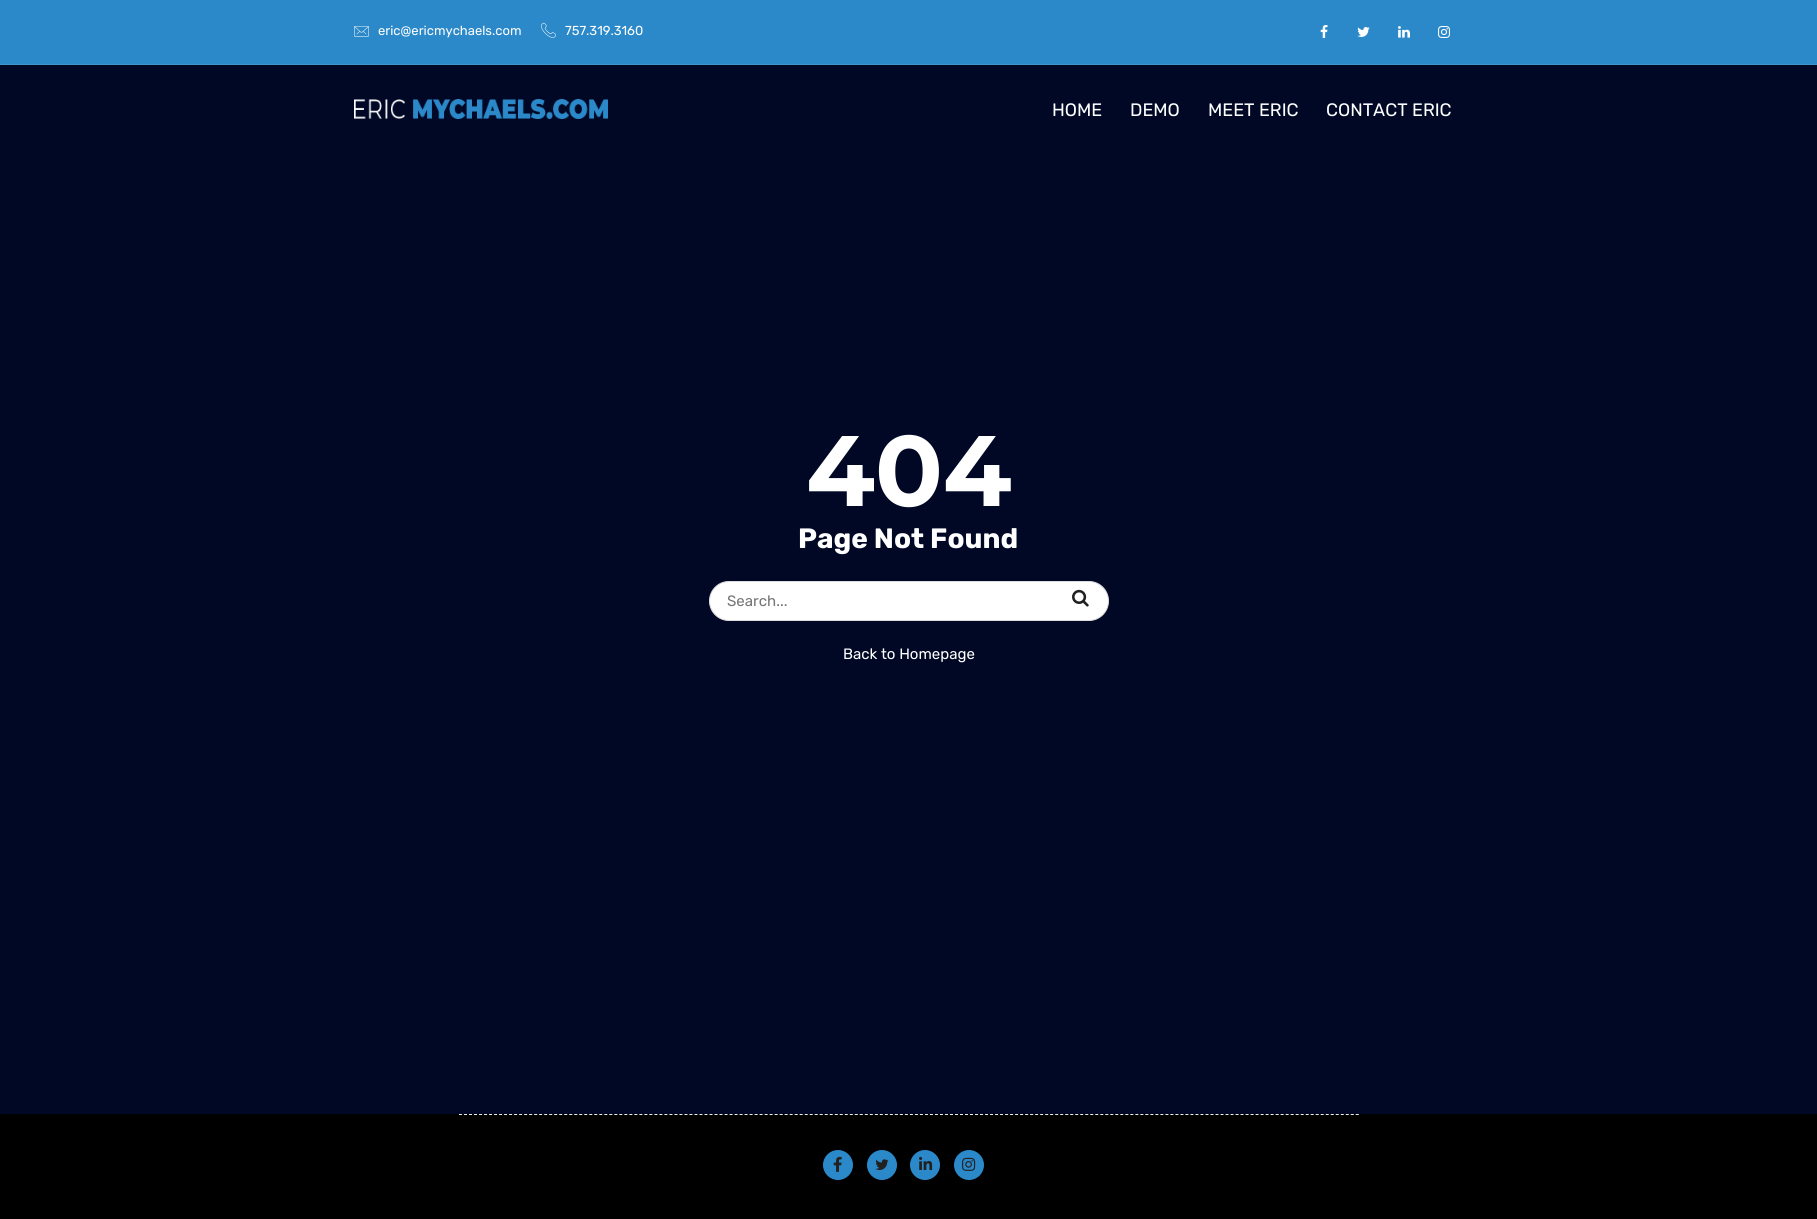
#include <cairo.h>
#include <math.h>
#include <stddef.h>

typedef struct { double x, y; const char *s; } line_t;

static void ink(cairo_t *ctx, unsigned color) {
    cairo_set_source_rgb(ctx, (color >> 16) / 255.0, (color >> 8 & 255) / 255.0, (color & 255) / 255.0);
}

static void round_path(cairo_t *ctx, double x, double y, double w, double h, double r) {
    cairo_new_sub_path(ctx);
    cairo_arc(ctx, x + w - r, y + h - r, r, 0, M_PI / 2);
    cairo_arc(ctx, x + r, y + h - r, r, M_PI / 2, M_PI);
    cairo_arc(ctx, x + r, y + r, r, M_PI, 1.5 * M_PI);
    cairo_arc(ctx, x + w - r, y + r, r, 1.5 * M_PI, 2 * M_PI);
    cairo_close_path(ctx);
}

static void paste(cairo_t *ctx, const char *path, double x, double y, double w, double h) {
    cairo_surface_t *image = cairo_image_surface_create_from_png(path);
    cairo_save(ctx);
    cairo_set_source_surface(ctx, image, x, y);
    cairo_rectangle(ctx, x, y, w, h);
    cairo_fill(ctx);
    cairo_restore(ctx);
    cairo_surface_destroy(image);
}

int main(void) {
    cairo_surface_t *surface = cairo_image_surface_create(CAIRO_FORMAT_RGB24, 1817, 1219);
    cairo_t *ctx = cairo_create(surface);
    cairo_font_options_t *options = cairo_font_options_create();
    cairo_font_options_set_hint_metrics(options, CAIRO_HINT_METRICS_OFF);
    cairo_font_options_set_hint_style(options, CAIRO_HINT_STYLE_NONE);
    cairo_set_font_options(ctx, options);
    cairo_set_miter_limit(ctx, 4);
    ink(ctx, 0x000000);
    cairo_paint(ctx);
    ink(ctx, 0x2B89C9);
    cairo_rectangle(ctx, 0, 0, 1817, 64);
    cairo_fill(ctx);
    ink(ctx, 0x4095CE);
    cairo_rectangle(ctx, 0, 64, 1817, 1);
    cairo_fill(ctx);
    paste(ctx, "media/1.png", 354, 26, 15, 11);
    cairo_select_font_face(ctx, "Rubik", CAIRO_FONT_SLANT_NORMAL, CAIRO_FONT_WEIGHT_NORMAL);
    cairo_set_font_size(ctx, 13);
    ink(ctx, 0xFFFFFF);
    cairo_move_to(ctx, 378, 35);
    cairo_show_text(ctx, "eric@ericmychaels.com");
    paste(ctx, "media/2.png", 541, 22, 15, 16);
    cairo_move_to(ctx, 565, 35);
    cairo_show_text(ctx, "757.319.3160");
    paste(ctx, "media/3.png", 1320, 25, 8, 13);
    paste(ctx, "media/4.png", 1357, 27, 13, 10);
    paste(ctx, "media/5.png", 1398, 26, 12, 12);
    paste(ctx, "media/6.png", 1438, 26, 12, 12);
    ink(ctx, 0x000825);
    cairo_rectangle(ctx, 0, 65, 1817, 1049);
    cairo_fill(ctx);
    paste(ctx, "media/7.png", 354, 99, 254, 20);
    cairo_set_font_size(ctx, 18);
    ink(ctx, 0xFFFFFF);
    {
        static const line_t items[] = {
            {1052, 116, "HOME"},
            {1130, 116, "DEMO"},
            {1208, 116, "MEET ERIC"},
            {1326, 116, "CONTACT ERIC"},
        };
        for (size_t i = 0; i < sizeof items / sizeof *items; i++) {
            cairo_move_to(ctx, items[i].x, items[i].y);
            cairo_show_text(ctx, items[i].s);
        }
    }
    cairo_select_font_face(ctx, "Montserrat", CAIRO_FONT_SLANT_NORMAL, CAIRO_FONT_WEIGHT_BOLD);
    cairo_set_font_size(ctx, 100);
    cairo_move_to(ctx, 806, 506);
    cairo_show_text(ctx, "404");
    cairo_select_font_face(ctx, "Rubik", CAIRO_FONT_SLANT_NORMAL, CAIRO_FONT_WEIGHT_BOLD);
    cairo_set_font_size(ctx, 28);
    cairo_move_to(ctx, 798, 548);
    cairo_show_text(ctx, "Page Not Found");
    round_path(ctx, 709.5, 581.5, 399, 39, 19.5);
    cairo_fill_preserve(ctx);
    ink(ctx, 0xDDDDDD);
    cairo_set_line_width(ctx, 1);
    cairo_stroke(ctx);
    cairo_select_font_face(ctx, "Rubik", CAIRO_FONT_SLANT_NORMAL, CAIRO_FONT_WEIGHT_NORMAL);
    cairo_set_font_size(ctx, 15);
    ink(ctx, 0x757575);
    cairo_move_to(ctx, 727, 606);
    cairo_show_text(ctx, "Search...");
    paste(ctx, "media/8.png", 1072, 589, 17, 18);
    ink(ctx, 0xFFFFFF);
    cairo_move_to(ctx, 843, 659);
    cairo_show_text(ctx, "Back to Homepage");
    cairo_new_path(ctx);
    cairo_move_to(ctx, 459, 1114.5);
    cairo_line_to(ctx, 1359, 1114.5);
    ink(ctx, 0xEEEEEE);
    cairo_set_dash(ctx, (double[]){3, 2.01}, 2, 0);
    cairo_stroke(ctx);
    ink(ctx, 0x2B89C9);
    cairo_arc(ctx, 838, 1165, 15, 0, 2 * M_PI);
    cairo_fill(ctx);
    paste(ctx, "media/9.png", 833, 1156, 9, 16);
    cairo_arc(ctx, 882, 1165, 15, 0, 2 * M_PI);
    cairo_fill(ctx);
    paste(ctx, "media/10.png", 875, 1159, 14, 11);
    cairo_arc(ctx, 925, 1165, 15, 0, 2 * M_PI);
    cairo_fill(ctx);
    paste(ctx, "media/11.png", 919, 1156, 14, 14);
    cairo_arc(ctx, 969, 1165, 15, 0, 2 * M_PI);
    cairo_fill(ctx);
    paste(ctx, "media/12.png", 962, 1157, 14, 14);
    cairo_surface_write_to_png(surface, "image.png");
    cairo_font_options_destroy(options);
    cairo_destroy(ctx);
    cairo_surface_destroy(surface);
    return 0;
}
